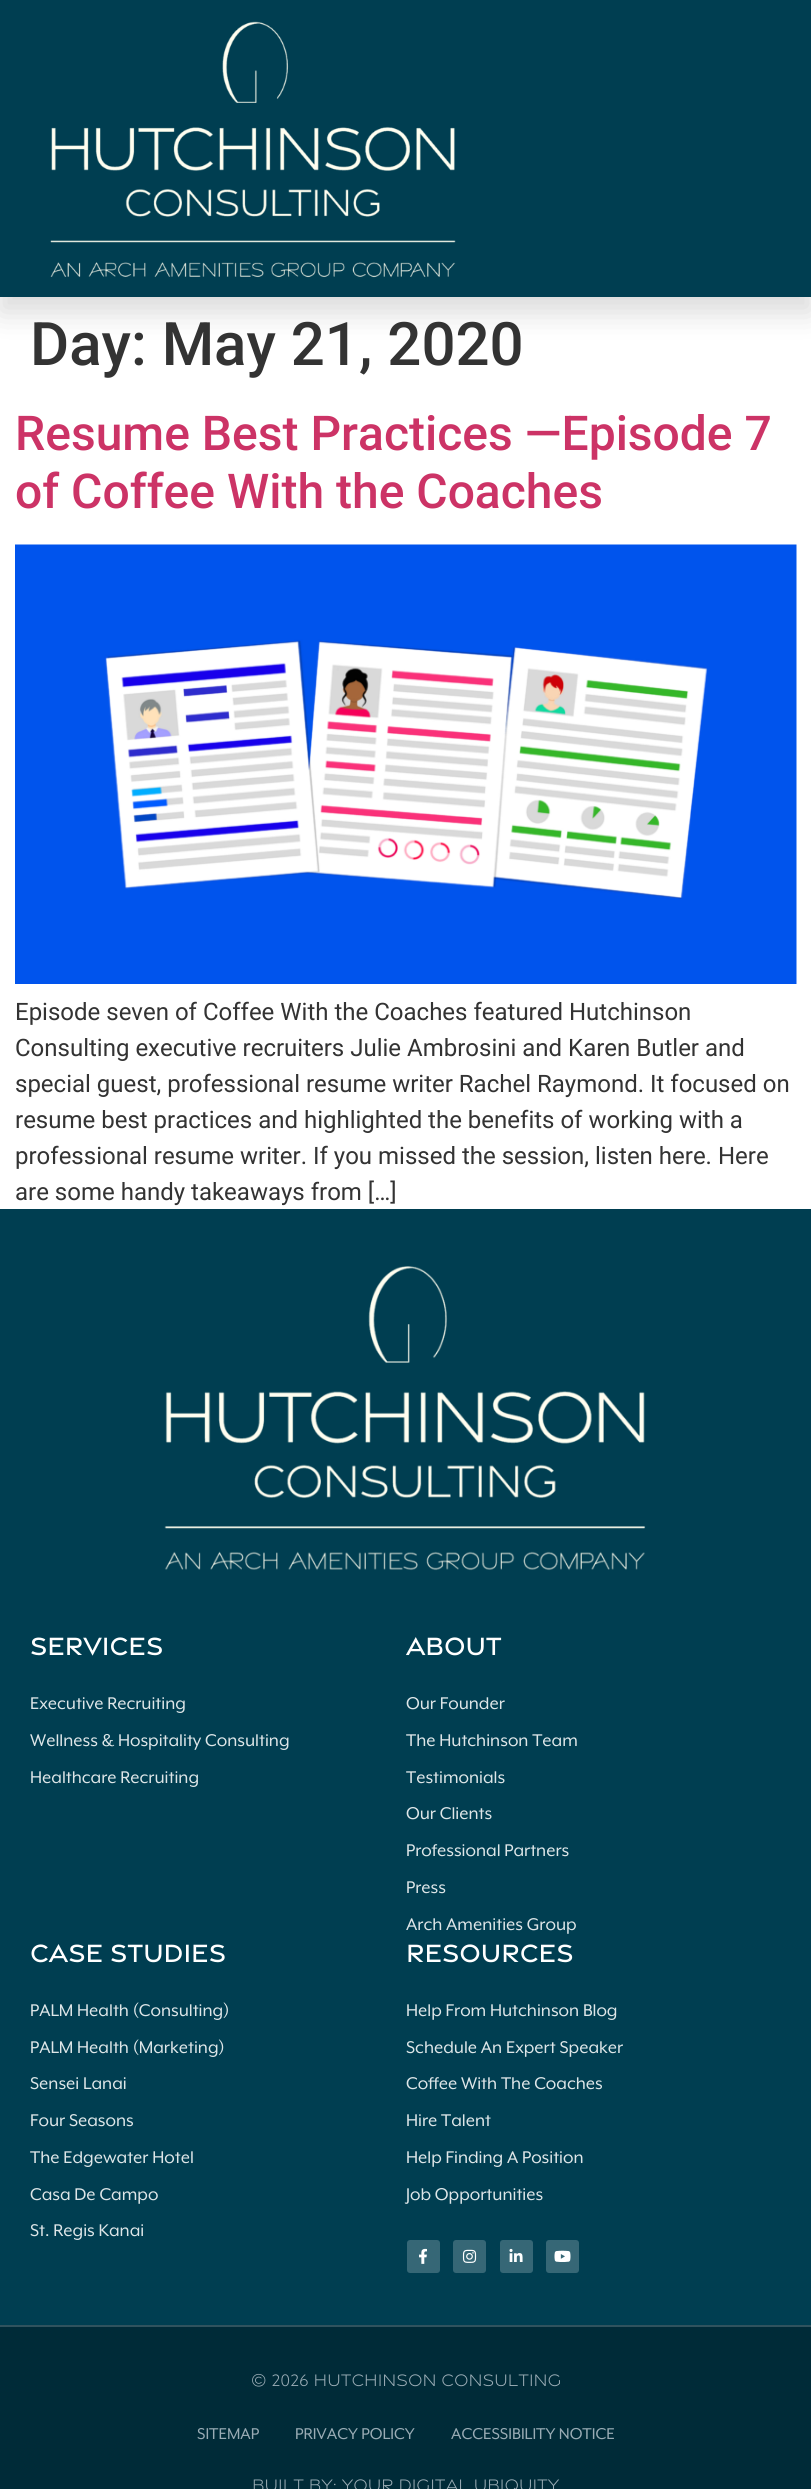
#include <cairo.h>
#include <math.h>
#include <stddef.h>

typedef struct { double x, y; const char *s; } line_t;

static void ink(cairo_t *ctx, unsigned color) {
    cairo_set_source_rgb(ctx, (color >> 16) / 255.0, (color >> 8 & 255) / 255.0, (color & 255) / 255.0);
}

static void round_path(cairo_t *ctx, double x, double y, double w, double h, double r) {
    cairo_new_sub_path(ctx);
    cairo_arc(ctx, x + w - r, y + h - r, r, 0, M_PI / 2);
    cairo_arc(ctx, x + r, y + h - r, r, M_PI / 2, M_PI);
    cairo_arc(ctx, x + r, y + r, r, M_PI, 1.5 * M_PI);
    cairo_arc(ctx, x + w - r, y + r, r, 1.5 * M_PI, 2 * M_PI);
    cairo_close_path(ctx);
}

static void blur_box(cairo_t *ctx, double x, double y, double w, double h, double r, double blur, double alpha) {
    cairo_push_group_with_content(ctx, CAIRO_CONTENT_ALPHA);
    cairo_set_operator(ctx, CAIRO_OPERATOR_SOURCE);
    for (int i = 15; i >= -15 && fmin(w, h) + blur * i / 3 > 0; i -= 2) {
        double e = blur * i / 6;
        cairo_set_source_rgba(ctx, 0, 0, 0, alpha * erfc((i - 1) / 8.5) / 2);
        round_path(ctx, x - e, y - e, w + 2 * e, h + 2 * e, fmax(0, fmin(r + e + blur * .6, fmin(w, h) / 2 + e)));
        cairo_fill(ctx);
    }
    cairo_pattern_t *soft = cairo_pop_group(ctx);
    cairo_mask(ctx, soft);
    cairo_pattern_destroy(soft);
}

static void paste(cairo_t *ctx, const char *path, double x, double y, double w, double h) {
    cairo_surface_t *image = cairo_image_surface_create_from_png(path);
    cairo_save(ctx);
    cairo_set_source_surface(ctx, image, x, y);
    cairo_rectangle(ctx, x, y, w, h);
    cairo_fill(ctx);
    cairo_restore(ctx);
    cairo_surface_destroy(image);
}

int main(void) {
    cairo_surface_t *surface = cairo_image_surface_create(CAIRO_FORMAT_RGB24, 811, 2489);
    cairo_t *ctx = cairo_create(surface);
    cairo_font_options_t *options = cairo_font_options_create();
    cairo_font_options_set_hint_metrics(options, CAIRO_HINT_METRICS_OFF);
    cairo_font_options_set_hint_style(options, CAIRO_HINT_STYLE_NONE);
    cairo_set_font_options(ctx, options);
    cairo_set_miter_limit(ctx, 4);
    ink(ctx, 0xFFFFFF);
    cairo_paint(ctx);
    ink(ctx, 0x000000);
    blur_box(ctx, 0, 15, 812, 297, 0, 15, 0.15);
    ink(ctx, 0x003E51);
    cairo_rectangle(ctx, 0, 0, 811, 297);
    cairo_fill(ctx);
    paste(ctx, "media/1.png", 50, 21, 406, 257);
    cairo_select_font_face(ctx, "Roboto Medium", CAIRO_FONT_SLANT_NORMAL, CAIRO_FONT_WEIGHT_NORMAL);
    cairo_set_font_size(ctx, 60);
    ink(ctx, 0x333333);
    cairo_move_to(ctx, 30, 365);
    cairo_show_text(ctx, "Day: May 21, 2020");
    cairo_set_font_size(ctx, 48);
    ink(ctx, 0xCC3366);
    cairo_move_to(ctx, 15, 450);
    cairo_show_text(ctx, "Resume Best Practices —Episode 7");
    cairo_move_to(ctx, 15, 508);
    cairo_show_text(ctx, "of Coffee With the Coaches");
    paste(ctx, "media/2.png", 15, 544, 782, 440);
    cairo_select_font_face(ctx, "Roboto", CAIRO_FONT_SLANT_NORMAL, CAIRO_FONT_WEIGHT_NORMAL);
    cairo_set_font_size(ctx, 24);
    ink(ctx, 0x333333);
    {
        static const line_t items[] = {
            {15, 1020, "Episode seven of Coffee With the Coaches featured Hutchinson"},
            {15, 1056, "Consulting executive recruiters Julie Ambrosini and Karen Butler and"},
            {15, 1092, "special guest, professional resume writer Rachel Raymond. It focused on"},
            {15, 1128, "resume best practices and highlighted the benefits of working with a"},
            {15, 1164, "professional resume writer. If you missed the session, listen here. Here"},
            {15, 1200, "are some handy takeaways from […]"},
        };
        for (size_t i = 0; i < sizeof items / sizeof *items; i++) {
            cairo_move_to(ctx, items[i].x, items[i].y);
            cairo_show_text(ctx, items[i].s);
        }
    }
    ink(ctx, 0x003E51);
    cairo_rectangle(ctx, 0, 1209, 811, 1116);
    cairo_fill(ctx);
    paste(ctx, "media/3.png", 164, 1266, 482, 305);
    cairo_select_font_face(ctx, "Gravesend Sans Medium", CAIRO_FONT_SLANT_NORMAL, CAIRO_FONT_WEIGHT_NORMAL);
    cairo_set_font_size(ctx, 27);
    ink(ctx, 0xFFFFFF);
    cairo_move_to(ctx, 30, 1655);
    cairo_show_text(ctx, "SERVICES");
    cairo_select_font_face(ctx, "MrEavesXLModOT", CAIRO_FONT_SLANT_NORMAL, CAIRO_FONT_WEIGHT_NORMAL);
    cairo_set_font_size(ctx, 19.5);
    ink(ctx, 0xDEE6E8);
    {
        static const line_t items[] = {
            {30, 1709, "Executive Recruiting"},
            {30, 1746, "Wellness & Hospitality Consulting"},
            {30, 1783, "Healthcare Recruiting"},
        };
        for (size_t i = 0; i < sizeof items / sizeof *items; i++) {
            cairo_move_to(ctx, items[i].x, items[i].y);
            cairo_show_text(ctx, items[i].s);
        }
    }
    cairo_select_font_face(ctx, "Gravesend Sans Medium", CAIRO_FONT_SLANT_NORMAL, CAIRO_FONT_WEIGHT_NORMAL);
    cairo_set_font_size(ctx, 27);
    ink(ctx, 0xFFFFFF);
    cairo_move_to(ctx, 406, 1655);
    cairo_show_text(ctx, "ABOUT");
    cairo_select_font_face(ctx, "MrEavesXLModOT", CAIRO_FONT_SLANT_NORMAL, CAIRO_FONT_WEIGHT_NORMAL);
    cairo_set_font_size(ctx, 19.5);
    ink(ctx, 0xDEE6E8);
    {
        static const line_t items[] = {
            {406, 1709, "Our Founder"},
            {406, 1746, "The Hutchinson Team"},
            {406, 1783, "Testimonials"},
            {406, 1819, "Our Clients"},
            {406, 1856, "Professional Partners"},
            {406, 1893, "Press"},
            {406, 1930, "Arch Amenities Group"},
        };
        for (size_t i = 0; i < sizeof items / sizeof *items; i++) {
            cairo_move_to(ctx, items[i].x, items[i].y);
            cairo_show_text(ctx, items[i].s);
        }
    }
    cairo_select_font_face(ctx, "Gravesend Sans Medium", CAIRO_FONT_SLANT_NORMAL, CAIRO_FONT_WEIGHT_NORMAL);
    cairo_set_font_size(ctx, 27);
    ink(ctx, 0xFFFFFF);
    cairo_move_to(ctx, 30, 1962);
    cairo_show_text(ctx, "CASE STUDIES");
    cairo_select_font_face(ctx, "MrEavesXLModOT", CAIRO_FONT_SLANT_NORMAL, CAIRO_FONT_WEIGHT_NORMAL);
    cairo_set_font_size(ctx, 19.5);
    ink(ctx, 0xDEE6E8);
    {
        static const line_t items[] = {
            {30, 2016, "PALM Health (Consulting)"},
            {30, 2053, "PALM Health (Marketing)"},
            {30, 2089, "Sensei Lanai"},
            {30, 2126, "Four Seasons"},
            {30, 2163, "The Edgewater Hotel"},
            {30, 2200, "Casa De Campo"},
            {30, 2236, "St. Regis Kanai"},
        };
        for (size_t i = 0; i < sizeof items / sizeof *items; i++) {
            cairo_move_to(ctx, items[i].x, items[i].y);
            cairo_show_text(ctx, items[i].s);
        }
    }
    cairo_select_font_face(ctx, "Gravesend Sans Medium", CAIRO_FONT_SLANT_NORMAL, CAIRO_FONT_WEIGHT_NORMAL);
    cairo_set_font_size(ctx, 27);
    ink(ctx, 0xFFFFFF);
    cairo_move_to(ctx, 406, 1962);
    cairo_show_text(ctx, "RESOURCES");
    cairo_select_font_face(ctx, "MrEavesXLModOT", CAIRO_FONT_SLANT_NORMAL, CAIRO_FONT_WEIGHT_NORMAL);
    cairo_set_font_size(ctx, 19.5);
    ink(ctx, 0xDEE6E8);
    {
        static const line_t items[] = {
            {406, 2016, "Help From Hutchinson Blog"},
            {406, 2053, "Schedule An Expert Speaker"},
            {406, 2089, "Coffee With The Coaches"},
            {406, 2126, "Hire Talent"},
            {406, 2163, "Help Finding A Position"},
            {406, 2200, "Job Opportunities"},
        };
        for (size_t i = 0; i < sizeof items / sizeof *items; i++) {
            cairo_move_to(ctx, items[i].x, items[i].y);
            cairo_show_text(ctx, items[i].s);
        }
    }
    ink(ctx, 0x366776);
    round_path(ctx, 407, 2240, 33, 33, 3);
    cairo_fill(ctx);
    paste(ctx, "media/4.png", 419, 2248, 8, 16);
    round_path(ctx, 453, 2240, 33, 33, 3);
    cairo_fill(ctx);
    paste(ctx, "media/5.png", 462, 2249, 15, 14);
    round_path(ctx, 500, 2240, 33, 33, 3);
    cairo_fill(ctx);
    paste(ctx, "media/6.png", 509, 2248, 14, 14);
    round_path(ctx, 546, 2240, 33, 33, 3);
    cairo_fill(ctx);
    paste(ctx, "media/7.png", 554, 2250, 17, 12);
    ink(ctx, 0x002B38);
    cairo_rectangle(ctx, 0, 2327, 811, 162);
    cairo_fill(ctx);
    ink(ctx, 0x30535E);
    cairo_rectangle(ctx, 0, 2325, 811, 2);
    cairo_fill(ctx);
    cairo_select_font_face(ctx, "Gravesend Sans Light", CAIRO_FONT_SLANT_NORMAL, CAIRO_FONT_WEIGHT_NORMAL);
    cairo_set_font_size(ctx, 18);
    ink(ctx, 0x99ABB4);
    cairo_move_to(ctx, 251, 2386);
    cairo_show_text(ctx, "© 2026 HUTCHINSON CONSULTING");
    cairo_select_font_face(ctx, "MrEavesXLModOT", CAIRO_FONT_SLANT_NORMAL, CAIRO_FONT_WEIGHT_NORMAL);
    {
        static const line_t items[] = {
            {197, 2439, "SITEMAP"},
            {295, 2439, "PRIVACY POLICY"},
            {451, 2439, "ACCESSIBILITY NOTICE"},
        };
        for (size_t i = 0; i < sizeof items / sizeof *items; i++) {
            cairo_move_to(ctx, items[i].x, items[i].y);
            cairo_show_text(ctx, items[i].s);
        }
    }
    cairo_select_font_face(ctx, "Gravesend Sans Light", CAIRO_FONT_SLANT_NORMAL, CAIRO_FONT_WEIGHT_NORMAL);
    cairo_move_to(ctx, 252, 2491);
    cairo_show_text(ctx, "BUILT BY: YOUR DIGITAL UBIQUITY");
    cairo_surface_write_to_png(surface, "image.png");
    cairo_font_options_destroy(options);
    cairo_destroy(ctx);
    cairo_surface_destroy(surface);
    return 0;
}
